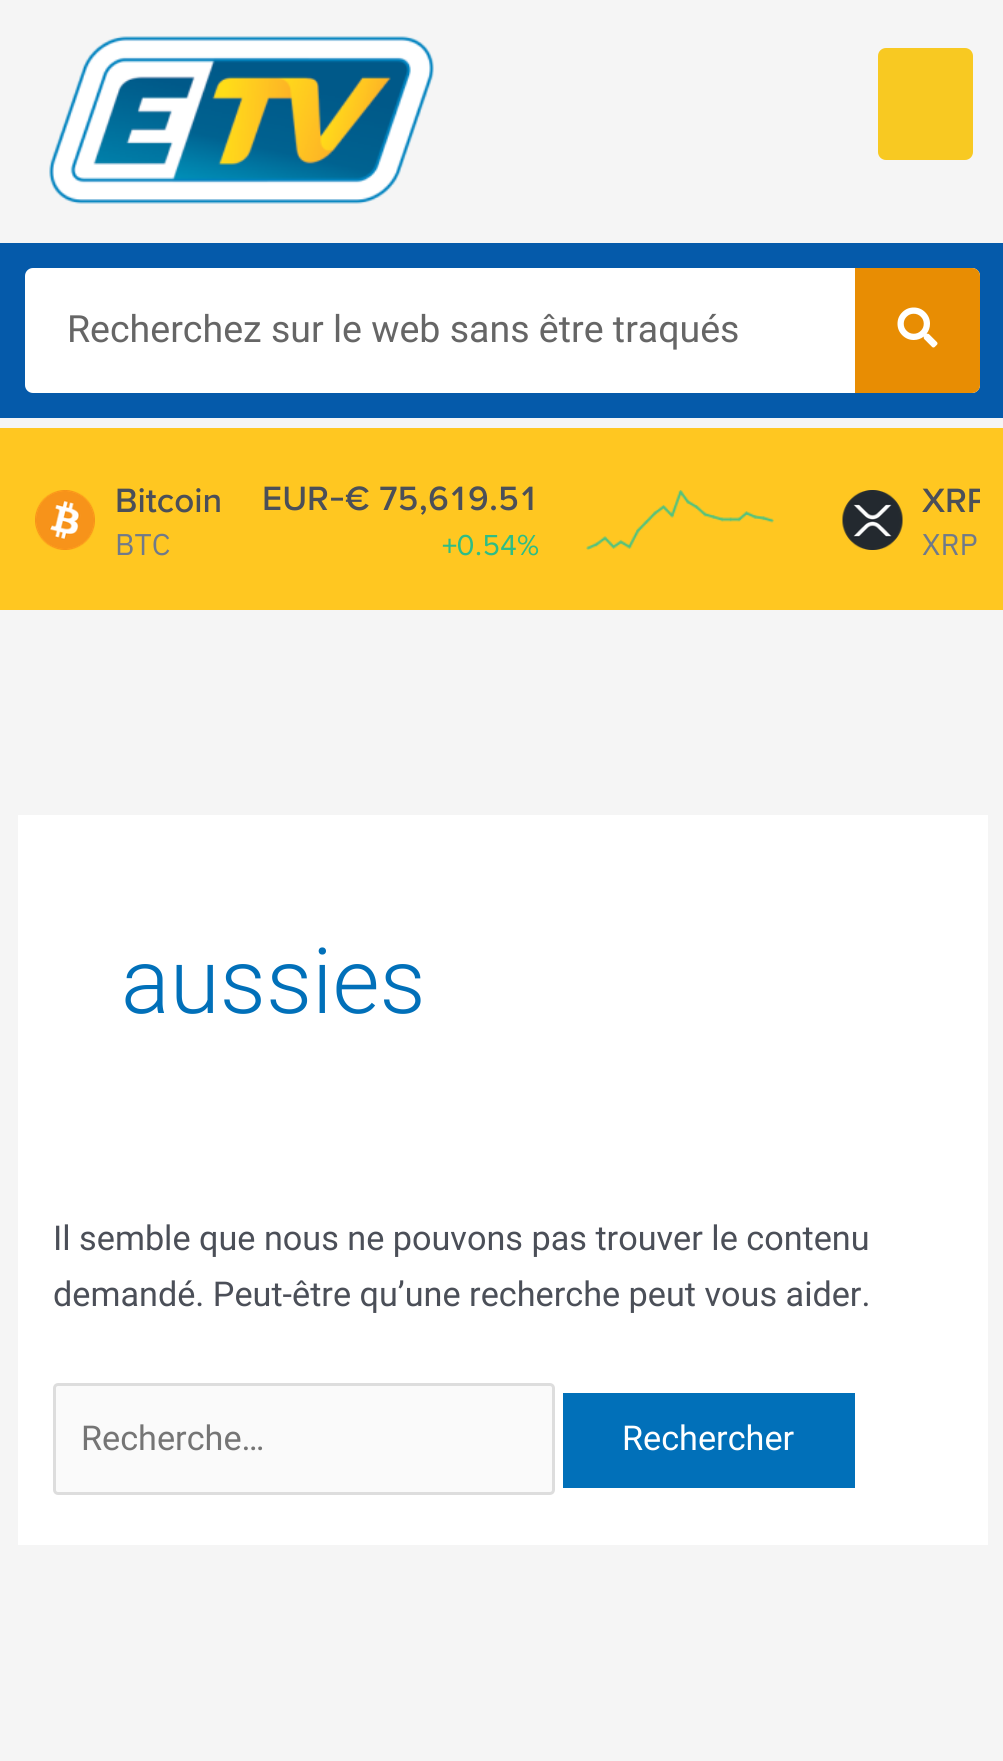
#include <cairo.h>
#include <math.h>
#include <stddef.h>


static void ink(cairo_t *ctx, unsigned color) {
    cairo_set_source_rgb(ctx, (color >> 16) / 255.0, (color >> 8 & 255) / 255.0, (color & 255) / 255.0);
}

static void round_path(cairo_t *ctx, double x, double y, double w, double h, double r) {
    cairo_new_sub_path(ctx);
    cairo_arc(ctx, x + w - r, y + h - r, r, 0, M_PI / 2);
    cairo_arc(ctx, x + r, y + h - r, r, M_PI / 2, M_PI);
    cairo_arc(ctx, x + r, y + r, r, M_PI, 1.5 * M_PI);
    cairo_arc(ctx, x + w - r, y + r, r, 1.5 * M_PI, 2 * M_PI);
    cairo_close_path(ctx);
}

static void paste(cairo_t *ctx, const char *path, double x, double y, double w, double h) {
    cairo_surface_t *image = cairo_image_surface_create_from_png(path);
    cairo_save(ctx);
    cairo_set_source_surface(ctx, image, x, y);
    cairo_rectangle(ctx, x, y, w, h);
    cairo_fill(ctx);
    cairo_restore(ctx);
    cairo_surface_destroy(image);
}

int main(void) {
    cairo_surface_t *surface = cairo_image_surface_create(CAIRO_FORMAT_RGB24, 1003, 1761);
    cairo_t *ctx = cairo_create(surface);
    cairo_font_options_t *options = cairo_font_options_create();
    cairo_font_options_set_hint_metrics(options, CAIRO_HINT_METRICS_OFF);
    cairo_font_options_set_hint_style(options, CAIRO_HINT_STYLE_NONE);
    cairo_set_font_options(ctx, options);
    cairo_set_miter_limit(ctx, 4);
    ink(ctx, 0xF5F5F5);
    cairo_paint(ctx);
    paste(ctx, "media/1.png", 49, 36, 385, 168);
    ink(ctx, 0xF8C922);
    round_path(ctx, 878, 48, 95, 112, 8);
    cairo_fill(ctx);
    ink(ctx, 0x055AAA);
    cairo_rectangle(ctx, 0, 243, 1003, 175);
    cairo_fill(ctx);
    ink(ctx, 0xFFFFFF);
    round_path(ctx, 25, 268, 955, 125, 8);
    cairo_fill(ctx);
    cairo_select_font_face(ctx, "Roboto", CAIRO_FONT_SLANT_NORMAL, CAIRO_FONT_WEIGHT_NORMAL);
    cairo_set_font_size(ctx, 37.5);
    ink(ctx, 0x666666);
    cairo_move_to(ctx, 67, 342);
    cairo_show_text(ctx, "Recherchez sur le web sans être traqués");
    ink(ctx, 0xE88D03);
    cairo_new_path(ctx);
    cairo_move_to(ctx, 855, 268);
    cairo_line_to(ctx, 972, 268);
    cairo_curve_to(ctx, 976.5, 268, 980, 271.5, 980, 276);
    cairo_line_to(ctx, 980, 385);
    cairo_curve_to(ctx, 980, 389.5, 976.5, 393, 972, 393);
    cairo_line_to(ctx, 855, 393);
    cairo_close_path(ctx);
    cairo_fill(ctx);
    paste(ctx, "media/2.png", 897, 307, 41, 41);
    ink(ctx, 0xFFC721);
    cairo_rectangle(ctx, 0, 428, 1003, 182);
    cairo_fill(ctx);
    paste(ctx, "media/3.png", 35, 490, 60, 60);
    cairo_select_font_face(ctx, "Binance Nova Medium", CAIRO_FONT_SLANT_NORMAL, CAIRO_FONT_WEIGHT_NORMAL);
    cairo_set_font_size(ctx, 35);
    ink(ctx, 0x4B4F58);
    cairo_move_to(ctx, 115, 512);
    cairo_show_text(ctx, "Bitcoin");
    cairo_select_font_face(ctx, "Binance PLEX", CAIRO_FONT_SLANT_NORMAL, CAIRO_FONT_WEIGHT_NORMAL);
    cairo_set_font_size(ctx, 30);
    ink(ctx, 0x707A8A);
    cairo_move_to(ctx, 115, 555);
    cairo_show_text(ctx, "BTC");
    cairo_select_font_face(ctx, "Binance Nova Medium", CAIRO_FONT_SLANT_NORMAL, CAIRO_FONT_WEIGHT_NORMAL);
    cairo_set_font_size(ctx, 35);
    ink(ctx, 0x4B4F58);
    cairo_move_to(ctx, 262, 510);
    cairo_show_text(ctx, "EUR-€ 75,619.51");
    cairo_select_font_face(ctx, "Binance Nova", CAIRO_FONT_SLANT_NORMAL, CAIRO_FONT_WEIGHT_NORMAL);
    cairo_set_font_size(ctx, 30);
    ink(ctx, 0x2EBD85);
    cairo_move_to(ctx, 442, 555);
    cairo_show_text(ctx, "+0.54%");
    paste(ctx, "media/4.png", 586, 490, 188, 60);
    paste(ctx, "media/5.png", 842, 490, 61, 60);
    cairo_save(ctx);
    cairo_rectangle(ctx, 25, 453, 955, 115);
    cairo_clip(ctx);
    cairo_select_font_face(ctx, "Binance Nova Medium", CAIRO_FONT_SLANT_NORMAL, CAIRO_FONT_WEIGHT_NORMAL);
    cairo_set_font_size(ctx, 35);
    ink(ctx, 0x4B4F58);
    cairo_move_to(ctx, 922, 512);
    cairo_show_text(ctx, "XRP");
    cairo_restore(ctx);
    cairo_select_font_face(ctx, "Binance PLEX", CAIRO_FONT_SLANT_NORMAL, CAIRO_FONT_WEIGHT_NORMAL);
    ink(ctx, 0x707A8A);
    cairo_move_to(ctx, 922, 555);
    cairo_show_text(ctx, "XRP");
    ink(ctx, 0xFFFFFF);
    cairo_rectangle(ctx, 18, 815, 970, 730);
    cairo_fill(ctx);
    cairo_select_font_face(ctx, "Roboto Light", CAIRO_FONT_SLANT_NORMAL, CAIRO_FONT_WEIGHT_NORMAL);
    cairo_set_font_size(ctx, 91);
    ink(ctx, 0x0170B9);
    cairo_move_to(ctx, 121, 1013);
    cairo_show_text(ctx, "aussies");
    cairo_select_font_face(ctx, "Roboto", CAIRO_FONT_SLANT_NORMAL, CAIRO_FONT_WEIGHT_NORMAL);
    cairo_set_font_size(ctx, 34.2);
    ink(ctx, 0x4B4F58);
    cairo_move_to(ctx, 53, 1250);
    cairo_show_text(ctx, "Il semble que nous ne pouvons pas trouver le contenu");
    cairo_move_to(ctx, 53, 1306);
    cairo_show_text(ctx, "demandé. Peut-être qu’une recherche peut vous aider.");
    ink(ctx, 0xFAFAFA);
    round_path(ctx, 54.5, 1384.5, 499, 109, 3.5);
    cairo_fill_preserve(ctx);
    ink(ctx, 0xDDDDDD);
    cairo_set_line_width(ctx, 3);
    cairo_stroke(ctx);
    ink(ctx, 0x757575);
    cairo_move_to(ctx, 81, 1450);
    cairo_show_text(ctx, "Recherche…");
    ink(ctx, 0x0170B9);
    cairo_rectangle(ctx, 563, 1393, 292, 95);
    cairo_fill(ctx);
    ink(ctx, 0xFFFFFF);
    cairo_move_to(ctx, 622, 1450);
    cairo_show_text(ctx, "Rechercher");
    cairo_surface_write_to_png(surface, "image.png");
    cairo_font_options_destroy(options);
    cairo_destroy(ctx);
    cairo_surface_destroy(surface);
    return 0;
}
